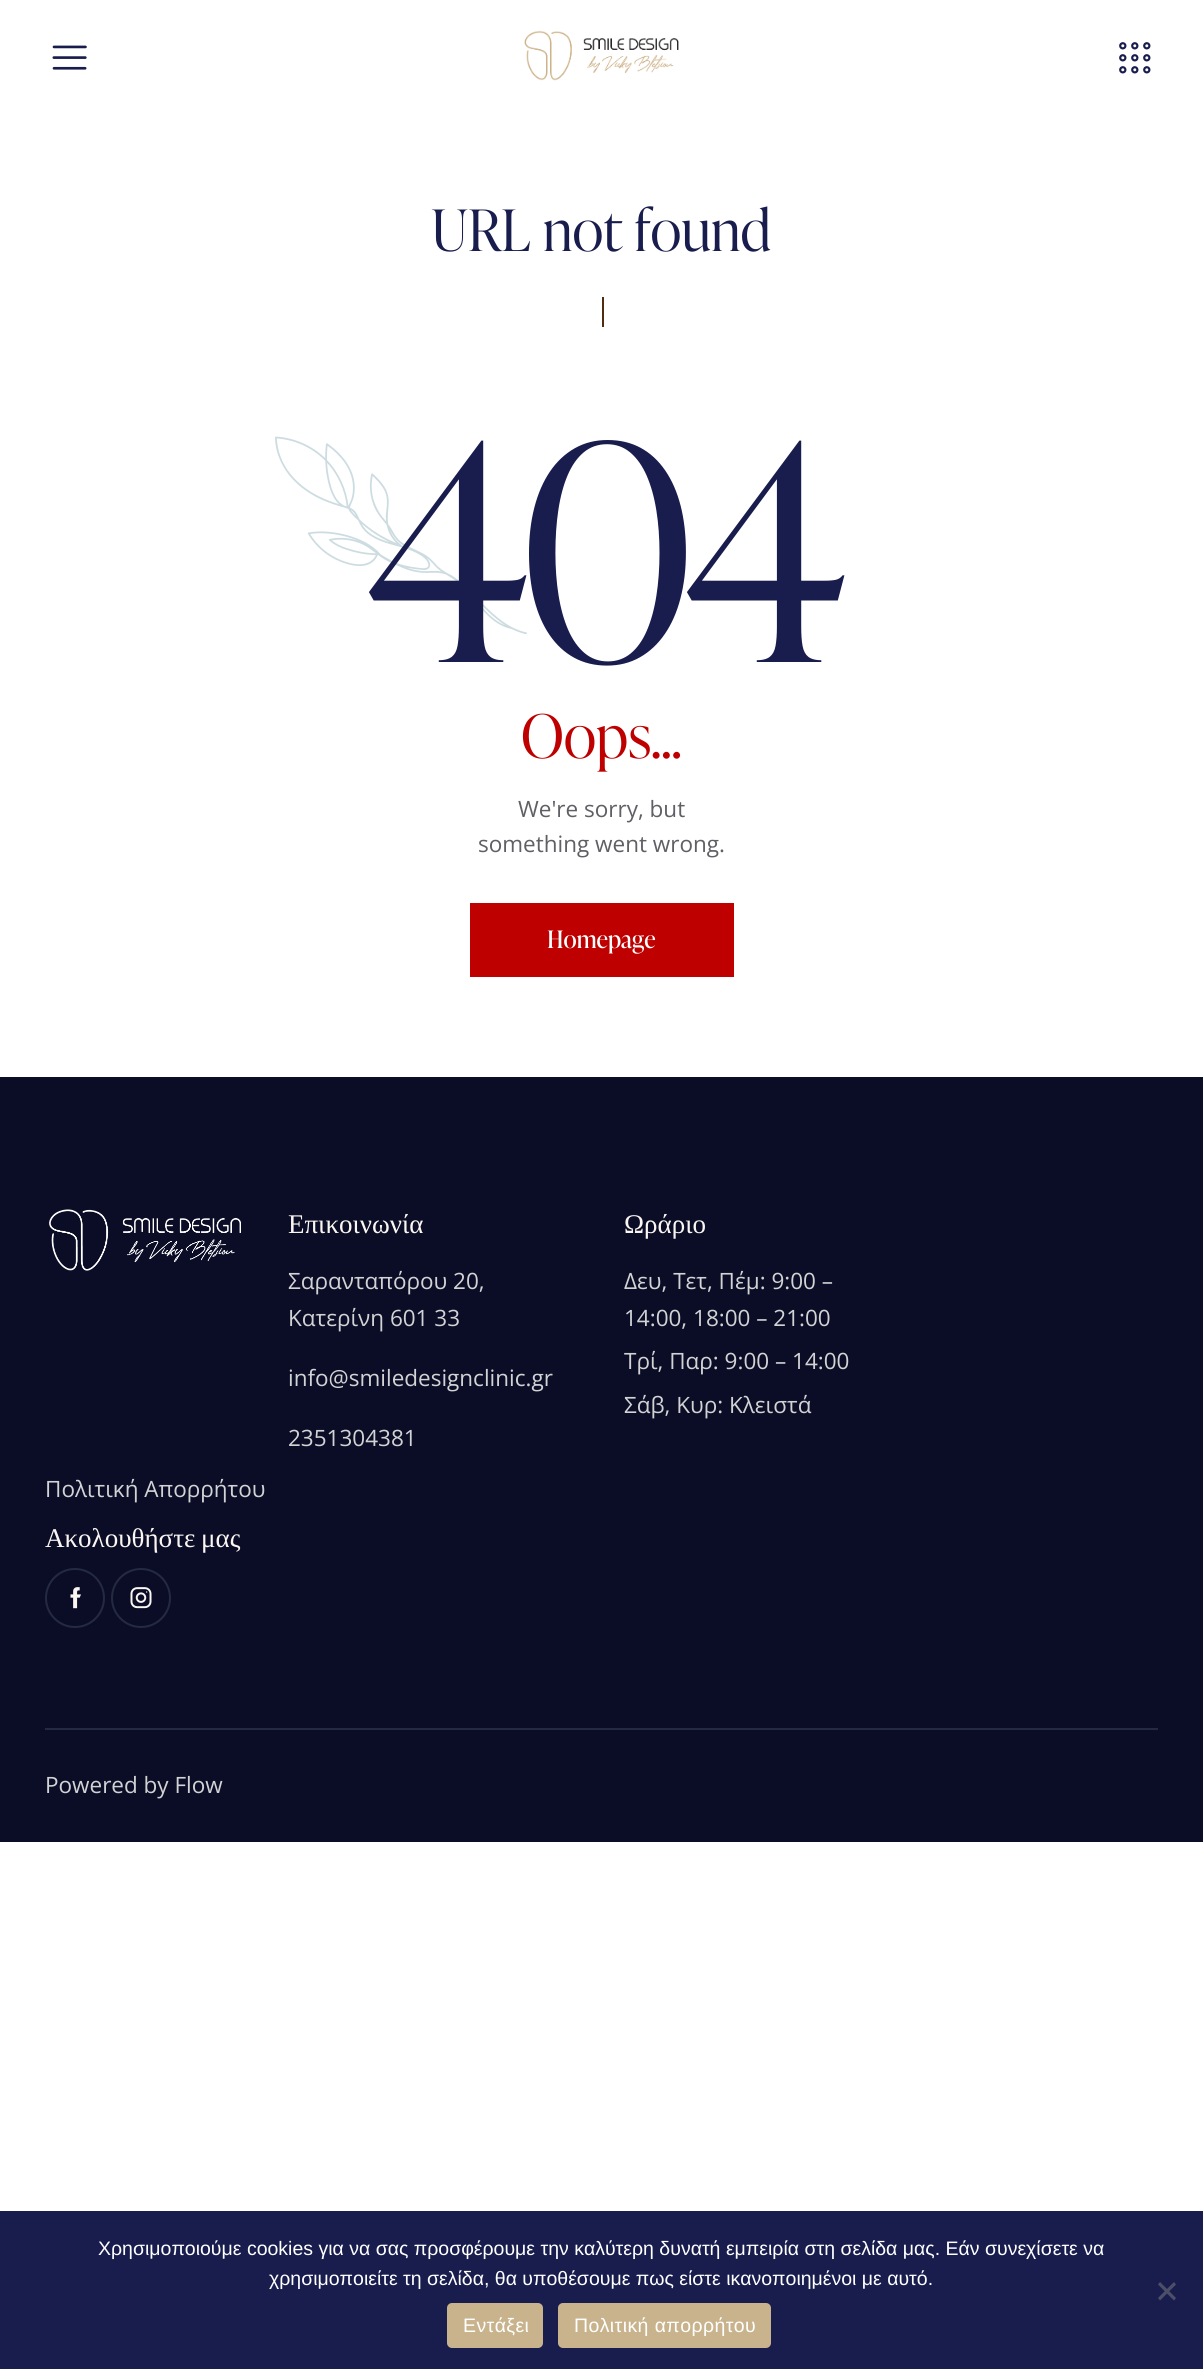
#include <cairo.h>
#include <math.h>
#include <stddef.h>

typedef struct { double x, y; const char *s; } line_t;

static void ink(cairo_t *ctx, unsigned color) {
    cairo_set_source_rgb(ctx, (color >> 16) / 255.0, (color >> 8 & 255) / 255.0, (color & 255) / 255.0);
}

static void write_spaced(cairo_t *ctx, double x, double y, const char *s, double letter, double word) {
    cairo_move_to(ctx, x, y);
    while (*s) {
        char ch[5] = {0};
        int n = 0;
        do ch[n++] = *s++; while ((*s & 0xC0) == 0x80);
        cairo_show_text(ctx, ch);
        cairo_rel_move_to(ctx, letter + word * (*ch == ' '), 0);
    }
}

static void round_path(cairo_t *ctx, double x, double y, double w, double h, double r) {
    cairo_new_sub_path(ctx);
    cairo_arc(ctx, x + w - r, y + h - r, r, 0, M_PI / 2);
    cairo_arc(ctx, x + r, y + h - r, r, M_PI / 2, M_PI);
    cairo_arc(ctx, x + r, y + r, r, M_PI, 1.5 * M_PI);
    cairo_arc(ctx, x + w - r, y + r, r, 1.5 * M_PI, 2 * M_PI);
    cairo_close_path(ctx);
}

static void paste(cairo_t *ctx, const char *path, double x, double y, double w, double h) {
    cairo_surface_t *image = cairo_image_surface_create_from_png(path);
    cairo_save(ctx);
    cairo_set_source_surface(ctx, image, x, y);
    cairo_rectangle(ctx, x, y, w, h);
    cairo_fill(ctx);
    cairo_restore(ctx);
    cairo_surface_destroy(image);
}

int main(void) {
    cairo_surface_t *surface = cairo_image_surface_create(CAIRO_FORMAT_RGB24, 1203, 2369);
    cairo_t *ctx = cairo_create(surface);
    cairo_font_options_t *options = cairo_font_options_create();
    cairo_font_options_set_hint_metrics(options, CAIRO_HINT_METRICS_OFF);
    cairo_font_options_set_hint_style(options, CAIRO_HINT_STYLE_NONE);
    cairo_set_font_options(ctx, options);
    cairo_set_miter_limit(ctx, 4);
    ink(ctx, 0xFFFFFF);
    cairo_paint(ctx);
    paste(ctx, "media/1.png", 52, 45, 35, 25);
    paste(ctx, "media/2.png", 524, 30, 155, 51);
    paste(ctx, "media/3.png", 1119, 42, 32, 32);
    cairo_select_font_face(ctx, "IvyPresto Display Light", CAIRO_FONT_SLANT_NORMAL, CAIRO_FONT_WEIGHT_NORMAL);
    cairo_set_font_size(ctx, 57);
    ink(ctx, 0x181D4E);
    cairo_move_to(ctx, 431, 251);
    cairo_show_text(ctx, "URL not found");
    ink(ctx, 0x4D2E12);
    cairo_rectangle(ctx, 602, 297, 2, 30);
    cairo_fill(ctx);
    paste(ctx, "media/4.png", 275, 436, 252, 198);
    cairo_set_font_size(ctx, 300);
    ink(ctx, 0x181D4E);
    write_spaced(ctx, 368, 662, "404", -12, 0);
    cairo_set_font_size(ctx, 60);
    ink(ctx, 0xBE0000);
    cairo_move_to(ctx, 521, 758);
    cairo_show_text(ctx, "Oops...");
    cairo_select_font_face(ctx, "Open Sans", CAIRO_FONT_SLANT_NORMAL, CAIRO_FONT_WEIGHT_NORMAL);
    cairo_set_font_size(ctx, 22.5);
    ink(ctx, 0x5F5F65);
    cairo_move_to(ctx, 518, 817);
    cairo_show_text(ctx, "We're sorry, but");
    cairo_move_to(ctx, 478, 852);
    cairo_show_text(ctx, "something went wrong.");
    ink(ctx, 0xBE0000);
    cairo_rectangle(ctx, 470, 903, 264, 74);
    cairo_fill(ctx);
    cairo_select_font_face(ctx, "IvyPresto Display", CAIRO_FONT_SLANT_NORMAL, CAIRO_FONT_WEIGHT_NORMAL);
    cairo_set_font_size(ctx, 24);
    ink(ctx, 0xFFFFFF);
    cairo_move_to(ctx, 547, 948);
    cairo_show_text(ctx, "Homepage");
    ink(ctx, 0x0B0D26);
    cairo_rectangle(ctx, 0, 1077, 1203, 765);
    cairo_fill(ctx);
    paste(ctx, "media/5.png", 49, 1209, 192, 62);
    cairo_select_font_face(ctx, "Liberation Serif", CAIRO_FONT_SLANT_NORMAL, CAIRO_FONT_WEIGHT_NORMAL);
    cairo_set_font_size(ctx, 27);
    ink(ctx, 0xFBF6F2);
    cairo_move_to(ctx, 288, 1233);
    cairo_show_text(ctx, "Επικοινωνία");
    cairo_select_font_face(ctx, "Open Sans", CAIRO_FONT_SLANT_NORMAL, CAIRO_FONT_WEIGHT_NORMAL);
    cairo_set_font_size(ctx, 22.5);
    ink(ctx, 0xD2D3D5);
    {
        static const line_t items[] = {
            {288, 1289, "Σαρανταπόρου 20,"},
            {288, 1326, "Κατερίνη 601 33"},
            {288, 1386, "info@smiledesignclinic.gr"},
            {288, 1446, "2351304381"},
        };
        for (size_t i = 0; i < sizeof items / sizeof *items; i++) {
            cairo_move_to(ctx, items[i].x, items[i].y);
            cairo_show_text(ctx, items[i].s);
        }
    }
    cairo_select_font_face(ctx, "Liberation Serif", CAIRO_FONT_SLANT_NORMAL, CAIRO_FONT_WEIGHT_NORMAL);
    cairo_set_font_size(ctx, 27);
    ink(ctx, 0xFBF6F2);
    cairo_move_to(ctx, 624, 1233);
    cairo_show_text(ctx, "Ωράριο");
    cairo_select_font_face(ctx, "Open Sans", CAIRO_FONT_SLANT_NORMAL, CAIRO_FONT_WEIGHT_NORMAL);
    cairo_set_font_size(ctx, 22.5);
    ink(ctx, 0xD2D3D5);
    {
        static const line_t items[] = {
            {624, 1289, "Δευ, Τετ, Πέμ: 9:00 –"},
            {624, 1326, "14:00, 18:00 – 21:00"},
            {624, 1369, "Τρί, Παρ: 9:00 – 14:00"},
            {624, 1413, "Σάβ, Κυρ: Κλειστά"},
            {45, 1497, "Πολιτική Απορρήτου"},
        };
        for (size_t i = 0; i < sizeof items / sizeof *items; i++) {
            cairo_move_to(ctx, items[i].x, items[i].y);
            cairo_show_text(ctx, items[i].s);
        }
    }
    cairo_select_font_face(ctx, "Liberation Serif", CAIRO_FONT_SLANT_NORMAL, CAIRO_FONT_WEIGHT_NORMAL);
    cairo_set_font_size(ctx, 27);
    ink(ctx, 0xFBF6F2);
    write_spaced(ctx, 45, 1547, "Ακολουθήστε μας", 0, -1);
    cairo_new_path(ctx);
    cairo_arc(ctx, 75, 1598, 29, 0, 2 * M_PI);
    ink(ctx, 0x242A40);
    cairo_stroke(ctx);
    paste(ctx, "media/6.png", 70, 1587, 11, 22);
    cairo_arc(ctx, 141, 1598, 29, 0, 2 * M_PI);
    cairo_stroke(ctx);
    paste(ctx, "media/7.png", 130, 1587, 22, 22);
    cairo_rectangle(ctx, 45, 1728, 1113, 2);
    cairo_fill(ctx);
    cairo_select_font_face(ctx, "Open Sans", CAIRO_FONT_SLANT_NORMAL, CAIRO_FONT_WEIGHT_NORMAL);
    cairo_set_font_size(ctx, 22.5);
    ink(ctx, 0xD2D3D5);
    cairo_move_to(ctx, 45, 1793);
    cairo_show_text(ctx, "Powered by Flow");
    ink(ctx, 0x181D4E);
    cairo_rectangle(ctx, 0, 2211, 1203, 158);
    cairo_fill(ctx);
    cairo_select_font_face(ctx, "Liberation Sans", CAIRO_FONT_SLANT_NORMAL, CAIRO_FONT_WEIGHT_NORMAL);
    cairo_set_font_size(ctx, 19.5);
    ink(ctx, 0xFFFFFF);
    cairo_move_to(ctx, 98, 2255);
    cairo_show_text(ctx, "Χρησιμοποιούμε cookies για να σας προσφέρουμε την καλύτερη δυνατή εμπειρία στη σελίδα μας. Εάν συνεχίσετε να");
    cairo_move_to(ctx, 269, 2285);
    cairo_show_text(ctx, "χρησιμοποιείτε τη σελίδα, θα υποθέσουμε πως είστε ικανοποιημένοι με αυτό.");
    ink(ctx, 0x4C4F67);
    cairo_new_path(ctx);
    cairo_move_to(ctx, 1174, 2282);
    cairo_line_to(ctx, 1176, 2284.5);
    cairo_line_to(ctx, 1160, 2300.5);
    cairo_line_to(ctx, 1158, 2298);
    cairo_close_path(ctx);
    cairo_fill(ctx);
    cairo_new_path(ctx);
    cairo_move_to(ctx, 1158, 2284.5);
    cairo_line_to(ctx, 1160, 2282);
    cairo_line_to(ctx, 1176, 2298);
    cairo_line_to(ctx, 1174, 2300.5);
    cairo_close_path(ctx);
    cairo_fill(ctx);
    ink(ctx, 0xC8B38C);
    round_path(ctx, 447, 2303, 96, 45, 5);
    cairo_fill(ctx);
    ink(ctx, 0xFFFFFF);
    write_spaced(ctx, 463, 2332, "Εντάξει", 0.4, 0);
    ink(ctx, 0xC8B38C);
    round_path(ctx, 558, 2303, 213, 45, 5);
    cairo_fill(ctx);
    ink(ctx, 0xFFFFFF);
    write_spaced(ctx, 574, 2332, "Πολιτική απορρήτου", 0.4, 0);
    cairo_surface_write_to_png(surface, "image.png");
    cairo_font_options_destroy(options);
    cairo_destroy(ctx);
    cairo_surface_destroy(surface);
    return 0;
}
